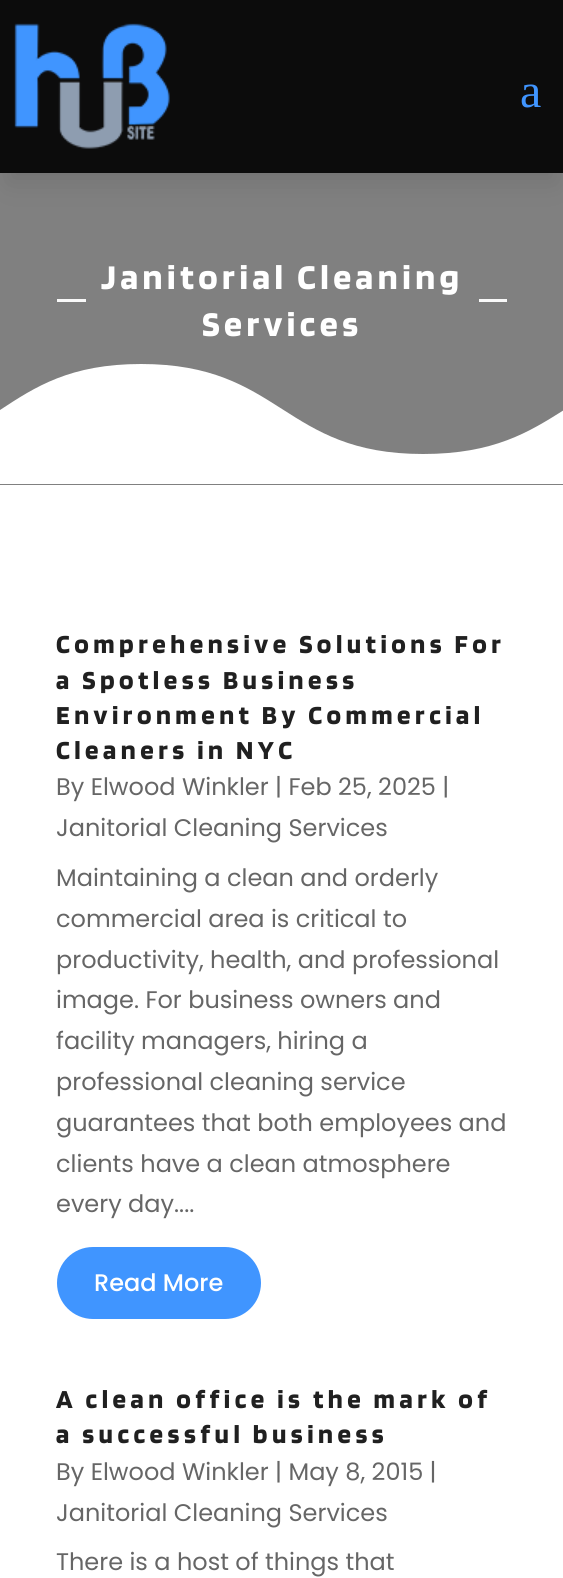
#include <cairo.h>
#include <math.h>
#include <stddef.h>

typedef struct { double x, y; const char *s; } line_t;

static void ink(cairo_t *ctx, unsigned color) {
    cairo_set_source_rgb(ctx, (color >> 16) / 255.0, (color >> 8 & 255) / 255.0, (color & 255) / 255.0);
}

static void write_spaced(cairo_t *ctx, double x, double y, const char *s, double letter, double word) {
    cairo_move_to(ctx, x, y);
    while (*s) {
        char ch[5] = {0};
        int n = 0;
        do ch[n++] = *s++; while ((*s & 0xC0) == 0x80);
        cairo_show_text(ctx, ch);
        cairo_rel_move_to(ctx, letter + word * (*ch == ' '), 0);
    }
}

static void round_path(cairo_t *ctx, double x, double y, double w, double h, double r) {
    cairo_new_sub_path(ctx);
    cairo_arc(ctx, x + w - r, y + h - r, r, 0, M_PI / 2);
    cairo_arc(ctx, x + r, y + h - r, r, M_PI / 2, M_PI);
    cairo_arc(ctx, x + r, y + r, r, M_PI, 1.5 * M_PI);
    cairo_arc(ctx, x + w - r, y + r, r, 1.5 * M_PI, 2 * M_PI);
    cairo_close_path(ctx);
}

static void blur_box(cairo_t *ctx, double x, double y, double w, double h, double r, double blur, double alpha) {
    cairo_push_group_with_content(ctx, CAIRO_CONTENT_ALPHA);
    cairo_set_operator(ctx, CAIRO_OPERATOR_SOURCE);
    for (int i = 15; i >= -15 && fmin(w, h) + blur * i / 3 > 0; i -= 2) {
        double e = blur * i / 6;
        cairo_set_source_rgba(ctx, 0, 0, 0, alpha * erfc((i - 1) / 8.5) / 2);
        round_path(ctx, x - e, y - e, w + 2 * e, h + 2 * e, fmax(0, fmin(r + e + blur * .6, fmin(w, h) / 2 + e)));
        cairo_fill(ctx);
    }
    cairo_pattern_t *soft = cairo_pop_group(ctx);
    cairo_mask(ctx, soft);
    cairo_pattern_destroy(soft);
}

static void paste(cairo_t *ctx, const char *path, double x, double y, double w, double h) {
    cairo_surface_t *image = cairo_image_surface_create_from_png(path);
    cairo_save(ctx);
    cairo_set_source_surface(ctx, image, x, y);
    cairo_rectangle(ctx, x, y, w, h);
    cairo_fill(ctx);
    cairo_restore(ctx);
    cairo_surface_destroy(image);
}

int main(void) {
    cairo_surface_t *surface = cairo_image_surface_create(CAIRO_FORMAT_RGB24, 563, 1578);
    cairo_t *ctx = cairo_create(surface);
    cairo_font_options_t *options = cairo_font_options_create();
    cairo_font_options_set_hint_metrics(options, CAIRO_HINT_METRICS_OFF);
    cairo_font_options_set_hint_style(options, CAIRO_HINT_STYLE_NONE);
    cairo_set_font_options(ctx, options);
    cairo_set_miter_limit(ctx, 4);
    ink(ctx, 0xFFFFFF);
    cairo_paint(ctx);
    ink(ctx, 0x808080);
    cairo_rectangle(ctx, 0, 173, 563, 312);
    cairo_fill(ctx);
    ink(ctx, 0x000000);
    blur_box(ctx, 9, 27, 546, 155, 0, 13.5, 0.1);
    ink(ctx, 0x0C0C0C);
    cairo_rectangle(ctx, 0, 0, 563, 173);
    cairo_fill(ctx);
    paste(ctx, "media/1.png", 14, 23, 156, 126);
    cairo_select_font_face(ctx, "Liberation Serif", CAIRO_FONT_SLANT_NORMAL, CAIRO_FONT_WEIGHT_NORMAL);
    cairo_set_font_size(ctx, 48);
    ink(ctx, 0x4095FF);
    cairo_move_to(ctx, 520, 107);
    cairo_show_text(ctx, "a");
    ink(ctx, 0xF9F9F9);
    cairo_rectangle(ctx, 57, 299, 29, 3);
    cairo_fill(ctx);
    cairo_select_font_face(ctx, "Blinker", CAIRO_FONT_SLANT_NORMAL, CAIRO_FONT_WEIGHT_BOLD);
    cairo_set_font_size(ctx, 36);
    ink(ctx, 0xFFFFFF);
    write_spaced(ctx, 101, 289, "Janitorial Cleaning", 4.5, 0);
    write_spaced(ctx, 202, 336, "Services", 4.5, 0);
    ink(ctx, 0xF9F9F9);
    cairo_rectangle(ctx, 479, 299, 28, 3);
    cairo_fill(ctx);
    ink(ctx, 0xFFFFFF);
    cairo_new_path(ctx);
    cairo_move_to(ctx, 141, 364);
    cairo_curve_to(ctx, 282, 364, 282, 454, 423, 454);
    cairo_curve_to(ctx, 494, 454, 529, 432, 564, 410);
    cairo_line_to(ctx, 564, 484);
    cairo_line_to(ctx, 0, 484);
    cairo_line_to(ctx, 0, 410);
    cairo_curve_to(ctx, 35, 387, 70, 364, 141, 364);
    cairo_close_path(ctx);
    cairo_fill(ctx);
    cairo_set_font_size(ctx, 27);
    ink(ctx, 0x202020);
    {
        static const line_t items[] = {
            {56, 653, "Comprehensive Solutions For"},
            {56, 689, "a Spotless Business"},
            {56, 724, "Environment By Commercial"},
            {56, 759, "Cleaners in NYC"},
        };
        for (size_t i = 0; i < sizeof items / sizeof *items; i++) {
            write_spaced(ctx, items[i].x, items[i].y, items[i].s, 4.5, 0);
        }
    }
    cairo_select_font_face(ctx, "Poppins", CAIRO_FONT_SLANT_NORMAL, CAIRO_FONT_WEIGHT_NORMAL);
    cairo_set_font_size(ctx, 24);
    ink(ctx, 0x666666);
    {
        static const line_t items[] = {
            {56, 795, "By Elwood Winkler | Feb 25, 2025 |"},
            {56, 836, "Janitorial Cleaning Services"},
            {56, 886, "Maintaining a clean and orderly"},
            {56, 927, "commercial area is critical to"},
            {56, 968, "productivity, health, and professional"},
            {56, 1008, "image. For business owners and"},
            {56, 1049, "facility managers, hiring a"},
            {56, 1090, "professional cleaning service"},
            {56, 1131, "guarantees that both employees and"},
            {56, 1172, "clients have a clean atmosphere"},
            {56, 1212, "every day...."},
        };
        for (size_t i = 0; i < sizeof items / sizeof *items; i++) {
            cairo_move_to(ctx, items[i].x, items[i].y);
            cairo_show_text(ctx, items[i].s);
        }
    }
    ink(ctx, 0x4095FF);
    round_path(ctx, 57, 1247, 204, 72, 36);
    cairo_fill(ctx);
    cairo_select_font_face(ctx, "Poppins Medium", CAIRO_FONT_SLANT_NORMAL, CAIRO_FONT_WEIGHT_NORMAL);
    ink(ctx, 0xFFFFFF);
    cairo_move_to(ctx, 94, 1291);
    cairo_show_text(ctx, "Read More");
    cairo_select_font_face(ctx, "Blinker", CAIRO_FONT_SLANT_NORMAL, CAIRO_FONT_WEIGHT_BOLD);
    cairo_set_font_size(ctx, 27);
    ink(ctx, 0x202020);
    write_spaced(ctx, 56, 1408, "A clean office is the mark of", 4.5, 0);
    write_spaced(ctx, 56, 1443, "a successful business", 4.5, 0);
    cairo_select_font_face(ctx, "Poppins", CAIRO_FONT_SLANT_NORMAL, CAIRO_FONT_WEIGHT_NORMAL);
    cairo_set_font_size(ctx, 24);
    ink(ctx, 0x666666);
    {
        static const line_t items[] = {
            {56, 1480, "By Elwood Winkler | May 8, 2015 |"},
            {56, 1521, "Janitorial Cleaning Services"},
            {56, 1570, "There is a host of things that"},
        };
        for (size_t i = 0; i < sizeof items / sizeof *items; i++) {
            cairo_move_to(ctx, items[i].x, items[i].y);
            cairo_show_text(ctx, items[i].s);
        }
    }
    cairo_surface_write_to_png(surface, "image.png");
    cairo_font_options_destroy(options);
    cairo_destroy(ctx);
    cairo_surface_destroy(surface);
    return 0;
}
